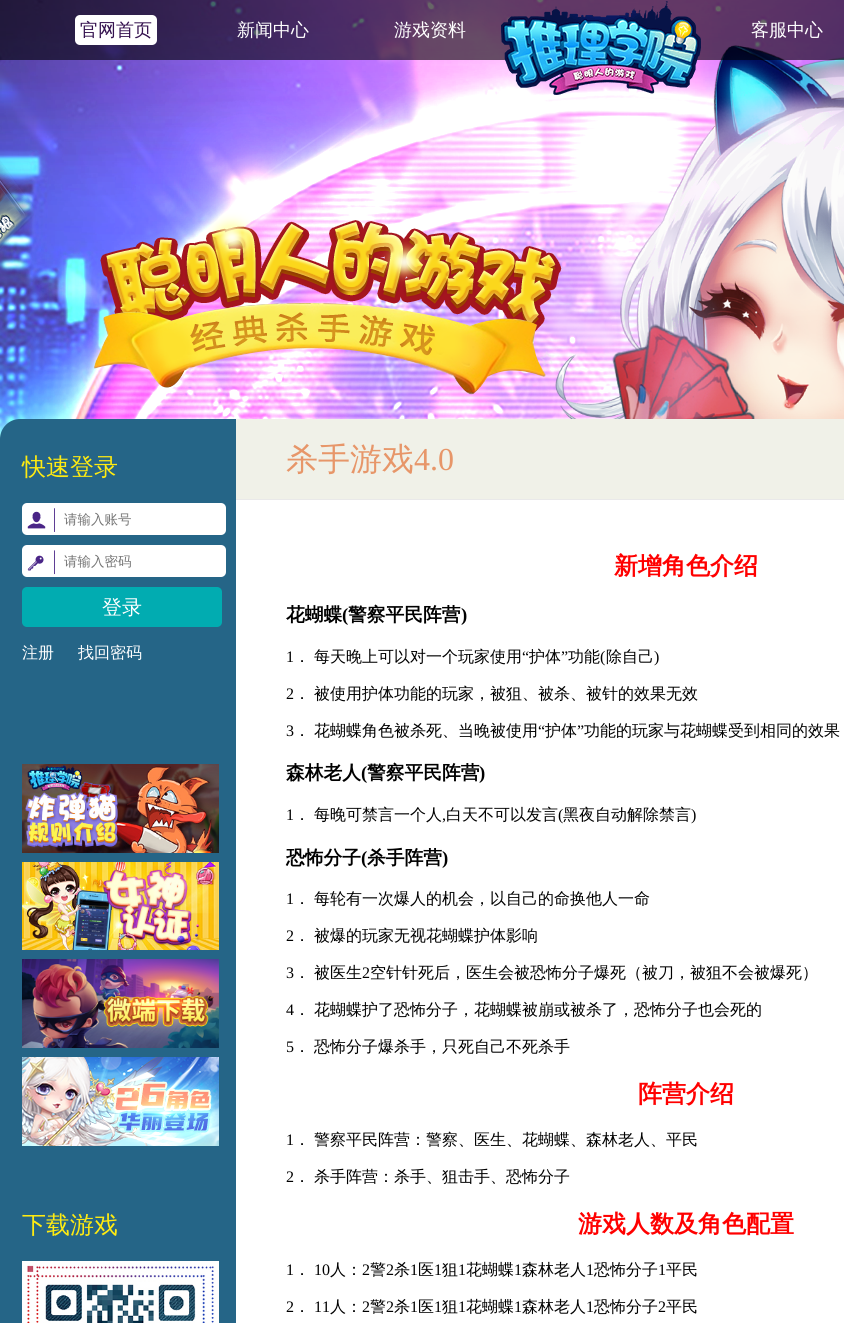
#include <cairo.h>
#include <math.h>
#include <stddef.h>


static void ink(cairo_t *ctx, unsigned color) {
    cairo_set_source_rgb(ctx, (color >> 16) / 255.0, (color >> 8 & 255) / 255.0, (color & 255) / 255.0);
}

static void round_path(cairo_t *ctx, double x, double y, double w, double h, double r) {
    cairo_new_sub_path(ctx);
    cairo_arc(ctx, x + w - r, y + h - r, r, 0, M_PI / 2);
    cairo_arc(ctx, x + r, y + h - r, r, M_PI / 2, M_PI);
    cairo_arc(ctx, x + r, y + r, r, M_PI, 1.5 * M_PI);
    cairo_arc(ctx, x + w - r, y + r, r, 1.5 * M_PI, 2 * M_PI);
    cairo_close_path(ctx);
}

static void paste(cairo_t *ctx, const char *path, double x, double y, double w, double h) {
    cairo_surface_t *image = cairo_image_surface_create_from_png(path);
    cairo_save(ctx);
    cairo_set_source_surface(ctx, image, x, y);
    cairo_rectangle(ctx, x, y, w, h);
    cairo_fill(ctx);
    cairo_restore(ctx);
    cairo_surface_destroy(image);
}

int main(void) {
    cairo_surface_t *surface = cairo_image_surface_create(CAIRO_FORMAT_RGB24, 844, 1323);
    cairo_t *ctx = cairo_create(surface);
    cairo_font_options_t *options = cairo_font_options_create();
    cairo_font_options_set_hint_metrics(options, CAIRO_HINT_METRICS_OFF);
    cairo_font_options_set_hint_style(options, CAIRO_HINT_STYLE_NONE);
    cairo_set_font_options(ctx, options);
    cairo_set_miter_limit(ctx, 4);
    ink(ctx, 0xFFFFFF);
    cairo_paint(ctx);
    paste(ctx, "media/1.png", 0, 0, 844, 439);
    ink(ctx, 0xFFFFFF);
    round_path(ctx, 75, 15, 82, 30, 5);
    cairo_fill(ctx);
    cairo_select_font_face(ctx, "WenQuanYi Zen Hei Medium", CAIRO_FONT_SLANT_NORMAL, CAIRO_FONT_WEIGHT_NORMAL);
    cairo_set_font_size(ctx, 18);
    ink(ctx, 0x34114E);
    cairo_move_to(ctx, 80, 36);
    cairo_show_text(ctx, "官网首页");
    ink(ctx, 0xFFFFFF);
    cairo_move_to(ctx, 237, 36);
    cairo_show_text(ctx, "新闻中心");
    cairo_move_to(ctx, 394, 36);
    cairo_show_text(ctx, "游戏资料");
    paste(ctx, "media/2.png", 501, 1, 200, 94);
    cairo_move_to(ctx, 751, 36);
    cairo_show_text(ctx, "客服中心");
    ink(ctx, 0x256587);
    cairo_new_path(ctx);
    cairo_move_to(ctx, 20, 419);
    cairo_line_to(ctx, 236, 419);
    cairo_line_to(ctx, 236, 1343);
    cairo_line_to(ctx, 20, 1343);
    cairo_curve_to(ctx, 9, 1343, 0, 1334, 0, 1323);
    cairo_line_to(ctx, 0, 439);
    cairo_curve_to(ctx, 0, 428, 9, 419, 20, 419);
    cairo_close_path(ctx);
    cairo_fill(ctx);
    cairo_set_font_size(ctx, 24);
    ink(ctx, 0xFFEB11);
    cairo_move_to(ctx, 22, 475);
    cairo_show_text(ctx, "快速登录");
    ink(ctx, 0xFFFFFF);
    round_path(ctx, 22, 503, 204, 32, 5);
    cairo_fill(ctx);
    paste(ctx, "media/3.png", 27, 508, 28, 24);
    cairo_set_font_size(ctx, 13.5);
    ink(ctx, 0x757575);
    cairo_move_to(ctx, 64, 524);
    cairo_show_text(ctx, "请输入账号");
    ink(ctx, 0xFFFFFF);
    round_path(ctx, 22, 545, 204, 32, 5);
    cairo_fill(ctx);
    paste(ctx, "media/4.png", 27, 550, 28, 25);
    ink(ctx, 0x757575);
    cairo_move_to(ctx, 64, 566);
    cairo_show_text(ctx, "请输入密码");
    ink(ctx, 0x01ACB1);
    round_path(ctx, 22, 587, 200, 40, 5);
    cairo_fill(ctx);
    cairo_set_font_size(ctx, 20);
    ink(ctx, 0xFFFFFF);
    cairo_move_to(ctx, 102, 614);
    cairo_show_text(ctx, "登录");
    cairo_set_font_size(ctx, 16);
    cairo_move_to(ctx, 22, 658);
    cairo_show_text(ctx, "注册");
    cairo_move_to(ctx, 78, 658);
    cairo_show_text(ctx, "找回密码");
    paste(ctx, "media/5.png", 22, 764, 197, 89);
    paste(ctx, "media/6.png", 22, 862, 197, 88);
    paste(ctx, "media/7.png", 22, 959, 197, 89);
    paste(ctx, "media/8.png", 22, 1057, 197, 89);
    cairo_set_font_size(ctx, 24);
    ink(ctx, 0xFFEB11);
    cairo_move_to(ctx, 22, 1233);
    cairo_show_text(ctx, "下载游戏");
    paste(ctx, "media/9.png", 22, 1261, 197, 62);
    ink(ctx, 0xF0F1E8);
    cairo_rectangle(ctx, 236, 419, 608, 80);
    cairo_fill(ctx);
    ink(ctx, 0xE9E9E9);
    cairo_rectangle(ctx, 236, 499, 608, 1);
    cairo_fill(ctx);
    cairo_set_font_size(ctx, 32);
    ink(ctx, 0xE79669);
    cairo_move_to(ctx, 286, 470);
    cairo_show_text(ctx, "杀手游戏");
    cairo_select_font_face(ctx, "Liberation Serif", CAIRO_FONT_SLANT_NORMAL, CAIRO_FONT_WEIGHT_NORMAL);
    cairo_move_to(ctx, 414, 470);
    cairo_show_text(ctx, "4.0");
    cairo_select_font_face(ctx, "WenQuanYi Zen Hei", CAIRO_FONT_SLANT_NORMAL, CAIRO_FONT_WEIGHT_BOLD);
    cairo_set_font_size(ctx, 24);
    ink(ctx, 0xFF0000);
    cairo_move_to(ctx, 614, 574);
    cairo_show_text(ctx, "新增角色介绍");
    cairo_set_font_size(ctx, 18.75);
    ink(ctx, 0x000000);
    cairo_move_to(ctx, 286, 621);
    cairo_show_text(ctx, "花蝴蝶");
    cairo_select_font_face(ctx, "Liberation Serif", CAIRO_FONT_SLANT_NORMAL, CAIRO_FONT_WEIGHT_BOLD);
    cairo_move_to(ctx, 342, 621);
    cairo_show_text(ctx, "(");
    cairo_select_font_face(ctx, "WenQuanYi Zen Hei", CAIRO_FONT_SLANT_NORMAL, CAIRO_FONT_WEIGHT_BOLD);
    cairo_move_to(ctx, 348, 621);
    cairo_show_text(ctx, "警察平民阵营");
    cairo_select_font_face(ctx, "Liberation Serif", CAIRO_FONT_SLANT_NORMAL, CAIRO_FONT_WEIGHT_BOLD);
    cairo_move_to(ctx, 461, 621);
    cairo_show_text(ctx, ")");
    cairo_select_font_face(ctx, "Liberation Serif", CAIRO_FONT_SLANT_NORMAL, CAIRO_FONT_WEIGHT_NORMAL);
    cairo_set_font_size(ctx, 16);
    cairo_move_to(ctx, 286, 662);
    cairo_show_text(ctx, "1");
    cairo_select_font_face(ctx, "WenQuanYi Zen Hei Medium", CAIRO_FONT_SLANT_NORMAL, CAIRO_FONT_WEIGHT_NORMAL);
    cairo_move_to(ctx, 314, 662);
    cairo_show_text(ctx, "每天晚上可以对一个玩家使用");
    cairo_select_font_face(ctx, "Liberation Serif", CAIRO_FONT_SLANT_NORMAL, CAIRO_FONT_WEIGHT_NORMAL);
    cairo_move_to(ctx, 522, 662);
    cairo_show_text(ctx, "“");
    cairo_select_font_face(ctx, "WenQuanYi Zen Hei Medium", CAIRO_FONT_SLANT_NORMAL, CAIRO_FONT_WEIGHT_NORMAL);
    cairo_move_to(ctx, 529, 662);
    cairo_show_text(ctx, "护体");
    cairo_select_font_face(ctx, "Liberation Serif", CAIRO_FONT_SLANT_NORMAL, CAIRO_FONT_WEIGHT_NORMAL);
    cairo_move_to(ctx, 561, 662);
    cairo_show_text(ctx, "”");
    cairo_select_font_face(ctx, "WenQuanYi Zen Hei Medium", CAIRO_FONT_SLANT_NORMAL, CAIRO_FONT_WEIGHT_NORMAL);
    cairo_move_to(ctx, 568, 662);
    cairo_show_text(ctx, "功能");
    cairo_select_font_face(ctx, "Liberation Serif", CAIRO_FONT_SLANT_NORMAL, CAIRO_FONT_WEIGHT_NORMAL);
    cairo_move_to(ctx, 600, 662);
    cairo_show_text(ctx, "(");
    cairo_select_font_face(ctx, "WenQuanYi Zen Hei Medium", CAIRO_FONT_SLANT_NORMAL, CAIRO_FONT_WEIGHT_NORMAL);
    cairo_move_to(ctx, 606, 662);
    cairo_show_text(ctx, "除自己");
    cairo_select_font_face(ctx, "Liberation Serif", CAIRO_FONT_SLANT_NORMAL, CAIRO_FONT_WEIGHT_NORMAL);
    cairo_move_to(ctx, 654, 662);
    cairo_show_text(ctx, ")");
    cairo_select_font_face(ctx, "WenQuanYi Zen Hei Medium", CAIRO_FONT_SLANT_NORMAL, CAIRO_FONT_WEIGHT_NORMAL);
    cairo_move_to(ctx, 294, 662);
    cairo_show_text(ctx, "．");
    cairo_select_font_face(ctx, "Liberation Serif", CAIRO_FONT_SLANT_NORMAL, CAIRO_FONT_WEIGHT_NORMAL);
    cairo_move_to(ctx, 286, 699);
    cairo_show_text(ctx, "2");
    cairo_select_font_face(ctx, "WenQuanYi Zen Hei Medium", CAIRO_FONT_SLANT_NORMAL, CAIRO_FONT_WEIGHT_NORMAL);
    cairo_move_to(ctx, 294, 699);
    cairo_show_text(ctx, "．");
    cairo_move_to(ctx, 314, 699);
    cairo_show_text(ctx, "被使用护体功能的玩家，被狙、被杀、被针的效果无效");
    cairo_select_font_face(ctx, "Liberation Serif", CAIRO_FONT_SLANT_NORMAL, CAIRO_FONT_WEIGHT_NORMAL);
    cairo_move_to(ctx, 286, 736);
    cairo_show_text(ctx, "3");
    cairo_select_font_face(ctx, "WenQuanYi Zen Hei Medium", CAIRO_FONT_SLANT_NORMAL, CAIRO_FONT_WEIGHT_NORMAL);
    cairo_move_to(ctx, 314, 736);
    cairo_show_text(ctx, "花蝴蝶角色被杀死、当晚被使用");
    cairo_select_font_face(ctx, "Liberation Serif", CAIRO_FONT_SLANT_NORMAL, CAIRO_FONT_WEIGHT_NORMAL);
    cairo_move_to(ctx, 538, 736);
    cairo_show_text(ctx, "“");
    cairo_select_font_face(ctx, "WenQuanYi Zen Hei Medium", CAIRO_FONT_SLANT_NORMAL, CAIRO_FONT_WEIGHT_NORMAL);
    cairo_move_to(ctx, 545, 736);
    cairo_show_text(ctx, "护体");
    cairo_select_font_face(ctx, "Liberation Serif", CAIRO_FONT_SLANT_NORMAL, CAIRO_FONT_WEIGHT_NORMAL);
    cairo_move_to(ctx, 577, 736);
    cairo_show_text(ctx, "”");
    cairo_select_font_face(ctx, "WenQuanYi Zen Hei Medium", CAIRO_FONT_SLANT_NORMAL, CAIRO_FONT_WEIGHT_NORMAL);
    cairo_move_to(ctx, 584, 736);
    cairo_show_text(ctx, "功能的玩家与花蝴蝶受到相同的效果");
    cairo_move_to(ctx, 294, 736);
    cairo_show_text(ctx, "．");
    cairo_select_font_face(ctx, "WenQuanYi Zen Hei", CAIRO_FONT_SLANT_NORMAL, CAIRO_FONT_WEIGHT_BOLD);
    cairo_set_font_size(ctx, 18.75);
    cairo_move_to(ctx, 286, 779);
    cairo_show_text(ctx, "森林老人");
    cairo_select_font_face(ctx, "Liberation Serif", CAIRO_FONT_SLANT_NORMAL, CAIRO_FONT_WEIGHT_BOLD);
    cairo_move_to(ctx, 361, 779);
    cairo_show_text(ctx, "(");
    cairo_select_font_face(ctx, "WenQuanYi Zen Hei", CAIRO_FONT_SLANT_NORMAL, CAIRO_FONT_WEIGHT_BOLD);
    cairo_move_to(ctx, 367, 779);
    cairo_show_text(ctx, "警察平民阵营");
    cairo_select_font_face(ctx, "Liberation Serif", CAIRO_FONT_SLANT_NORMAL, CAIRO_FONT_WEIGHT_BOLD);
    cairo_move_to(ctx, 479, 779);
    cairo_show_text(ctx, ")");
    cairo_select_font_face(ctx, "Liberation Serif", CAIRO_FONT_SLANT_NORMAL, CAIRO_FONT_WEIGHT_NORMAL);
    cairo_set_font_size(ctx, 16);
    cairo_move_to(ctx, 286, 820);
    cairo_show_text(ctx, "1");
    cairo_select_font_face(ctx, "WenQuanYi Zen Hei Medium", CAIRO_FONT_SLANT_NORMAL, CAIRO_FONT_WEIGHT_NORMAL);
    cairo_move_to(ctx, 294, 820);
    cairo_show_text(ctx, "．");
    cairo_move_to(ctx, 314, 820);
    cairo_show_text(ctx, "每晚可禁言一个人");
    cairo_select_font_face(ctx, "Liberation Serif", CAIRO_FONT_SLANT_NORMAL, CAIRO_FONT_WEIGHT_NORMAL);
    cairo_move_to(ctx, 442, 820);
    cairo_show_text(ctx, ",");
    cairo_select_font_face(ctx, "WenQuanYi Zen Hei Medium", CAIRO_FONT_SLANT_NORMAL, CAIRO_FONT_WEIGHT_NORMAL);
    cairo_move_to(ctx, 446, 820);
    cairo_show_text(ctx, "白天不可以发言");
    cairo_select_font_face(ctx, "Liberation Serif", CAIRO_FONT_SLANT_NORMAL, CAIRO_FONT_WEIGHT_NORMAL);
    cairo_move_to(ctx, 558, 820);
    cairo_show_text(ctx, "(");
    cairo_select_font_face(ctx, "WenQuanYi Zen Hei Medium", CAIRO_FONT_SLANT_NORMAL, CAIRO_FONT_WEIGHT_NORMAL);
    cairo_move_to(ctx, 563, 820);
    cairo_show_text(ctx, "黑夜自动解除禁言");
    cairo_select_font_face(ctx, "Liberation Serif", CAIRO_FONT_SLANT_NORMAL, CAIRO_FONT_WEIGHT_NORMAL);
    cairo_move_to(ctx, 691, 820);
    cairo_show_text(ctx, ")");
    cairo_select_font_face(ctx, "WenQuanYi Zen Hei", CAIRO_FONT_SLANT_NORMAL, CAIRO_FONT_WEIGHT_BOLD);
    cairo_set_font_size(ctx, 18.75);
    cairo_move_to(ctx, 286, 864);
    cairo_show_text(ctx, "恐怖分子");
    cairo_select_font_face(ctx, "Liberation Serif", CAIRO_FONT_SLANT_NORMAL, CAIRO_FONT_WEIGHT_BOLD);
    cairo_move_to(ctx, 361, 864);
    cairo_show_text(ctx, "(");
    cairo_select_font_face(ctx, "WenQuanYi Zen Hei", CAIRO_FONT_SLANT_NORMAL, CAIRO_FONT_WEIGHT_BOLD);
    cairo_move_to(ctx, 367, 864);
    cairo_show_text(ctx, "杀手阵营");
    cairo_select_font_face(ctx, "Liberation Serif", CAIRO_FONT_SLANT_NORMAL, CAIRO_FONT_WEIGHT_BOLD);
    cairo_move_to(ctx, 442, 864);
    cairo_show_text(ctx, ")");
    cairo_select_font_face(ctx, "Liberation Serif", CAIRO_FONT_SLANT_NORMAL, CAIRO_FONT_WEIGHT_NORMAL);
    cairo_set_font_size(ctx, 16);
    cairo_move_to(ctx, 286, 904);
    cairo_show_text(ctx, "1");
    cairo_select_font_face(ctx, "WenQuanYi Zen Hei Medium", CAIRO_FONT_SLANT_NORMAL, CAIRO_FONT_WEIGHT_NORMAL);
    cairo_move_to(ctx, 294, 904);
    cairo_show_text(ctx, "．");
    cairo_move_to(ctx, 314, 904);
    cairo_show_text(ctx, "每轮有一次爆人的机会，以自己的命换他人一命");
    cairo_select_font_face(ctx, "Liberation Serif", CAIRO_FONT_SLANT_NORMAL, CAIRO_FONT_WEIGHT_NORMAL);
    cairo_move_to(ctx, 286, 941);
    cairo_show_text(ctx, "2");
    cairo_select_font_face(ctx, "WenQuanYi Zen Hei Medium", CAIRO_FONT_SLANT_NORMAL, CAIRO_FONT_WEIGHT_NORMAL);
    cairo_move_to(ctx, 294, 941);
    cairo_show_text(ctx, "．");
    cairo_move_to(ctx, 314, 941);
    cairo_show_text(ctx, "被爆的玩家无视花蝴蝶护体影响");
    cairo_select_font_face(ctx, "Liberation Serif", CAIRO_FONT_SLANT_NORMAL, CAIRO_FONT_WEIGHT_NORMAL);
    cairo_move_to(ctx, 286, 978);
    cairo_show_text(ctx, "3");
    cairo_select_font_face(ctx, "WenQuanYi Zen Hei Medium", CAIRO_FONT_SLANT_NORMAL, CAIRO_FONT_WEIGHT_NORMAL);
    cairo_move_to(ctx, 294, 978);
    cairo_show_text(ctx, "．");
    cairo_move_to(ctx, 314, 978);
    cairo_show_text(ctx, "被医生");
    cairo_select_font_face(ctx, "Liberation Serif", CAIRO_FONT_SLANT_NORMAL, CAIRO_FONT_WEIGHT_NORMAL);
    cairo_move_to(ctx, 362, 978);
    cairo_show_text(ctx, "2");
    cairo_select_font_face(ctx, "WenQuanYi Zen Hei Medium", CAIRO_FONT_SLANT_NORMAL, CAIRO_FONT_WEIGHT_NORMAL);
    cairo_move_to(ctx, 370, 978);
    cairo_show_text(ctx, "空针针死后，医生会被恐怖分子爆死（被刀，被狙不会被爆死）");
    cairo_select_font_face(ctx, "Liberation Serif", CAIRO_FONT_SLANT_NORMAL, CAIRO_FONT_WEIGHT_NORMAL);
    cairo_move_to(ctx, 286, 1015);
    cairo_show_text(ctx, "4");
    cairo_select_font_face(ctx, "WenQuanYi Zen Hei Medium", CAIRO_FONT_SLANT_NORMAL, CAIRO_FONT_WEIGHT_NORMAL);
    cairo_move_to(ctx, 294, 1015);
    cairo_show_text(ctx, "．");
    cairo_move_to(ctx, 314, 1015);
    cairo_show_text(ctx, "花蝴蝶护了恐怖分子，花蝴蝶被崩或被杀了，恐怖分子也会死的");
    cairo_select_font_face(ctx, "Liberation Serif", CAIRO_FONT_SLANT_NORMAL, CAIRO_FONT_WEIGHT_NORMAL);
    cairo_move_to(ctx, 286, 1052);
    cairo_show_text(ctx, "5");
    cairo_select_font_face(ctx, "WenQuanYi Zen Hei Medium", CAIRO_FONT_SLANT_NORMAL, CAIRO_FONT_WEIGHT_NORMAL);
    cairo_move_to(ctx, 294, 1052);
    cairo_show_text(ctx, "．");
    cairo_move_to(ctx, 314, 1052);
    cairo_show_text(ctx, "恐怖分子爆杀手，只死自己不死杀手");
    cairo_select_font_face(ctx, "WenQuanYi Zen Hei", CAIRO_FONT_SLANT_NORMAL, CAIRO_FONT_WEIGHT_BOLD);
    cairo_set_font_size(ctx, 24);
    ink(ctx, 0xFF0000);
    cairo_move_to(ctx, 638, 1102);
    cairo_show_text(ctx, "阵营介绍");
    cairo_select_font_face(ctx, "Liberation Serif", CAIRO_FONT_SLANT_NORMAL, CAIRO_FONT_WEIGHT_NORMAL);
    cairo_set_font_size(ctx, 16);
    ink(ctx, 0x000000);
    cairo_move_to(ctx, 286, 1145);
    cairo_show_text(ctx, "1");
    cairo_select_font_face(ctx, "WenQuanYi Zen Hei Medium", CAIRO_FONT_SLANT_NORMAL, CAIRO_FONT_WEIGHT_NORMAL);
    cairo_move_to(ctx, 294, 1145);
    cairo_show_text(ctx, "．");
    cairo_move_to(ctx, 314, 1145);
    cairo_show_text(ctx, "警察平民阵营：警察、医生、花蝴蝶、森林老人、平民");
    cairo_select_font_face(ctx, "Liberation Serif", CAIRO_FONT_SLANT_NORMAL, CAIRO_FONT_WEIGHT_NORMAL);
    cairo_move_to(ctx, 286, 1182);
    cairo_show_text(ctx, "2");
    cairo_select_font_face(ctx, "WenQuanYi Zen Hei Medium", CAIRO_FONT_SLANT_NORMAL, CAIRO_FONT_WEIGHT_NORMAL);
    cairo_move_to(ctx, 294, 1182);
    cairo_show_text(ctx, "．");
    cairo_move_to(ctx, 314, 1182);
    cairo_show_text(ctx, "杀手阵营：杀手、狙击手、恐怖分子");
    cairo_select_font_face(ctx, "WenQuanYi Zen Hei", CAIRO_FONT_SLANT_NORMAL, CAIRO_FONT_WEIGHT_BOLD);
    cairo_set_font_size(ctx, 24);
    ink(ctx, 0xFF0000);
    cairo_move_to(ctx, 578, 1232);
    cairo_show_text(ctx, "游戏人数及角色配置");
    cairo_select_font_face(ctx, "Liberation Serif", CAIRO_FONT_SLANT_NORMAL, CAIRO_FONT_WEIGHT_NORMAL);
    cairo_set_font_size(ctx, 16);
    ink(ctx, 0x000000);
    cairo_move_to(ctx, 286, 1275);
    cairo_show_text(ctx, "1");
    cairo_select_font_face(ctx, "WenQuanYi Zen Hei Medium", CAIRO_FONT_SLANT_NORMAL, CAIRO_FONT_WEIGHT_NORMAL);
    cairo_move_to(ctx, 294, 1275);
    cairo_show_text(ctx, "．");
    cairo_select_font_face(ctx, "Liberation Serif", CAIRO_FONT_SLANT_NORMAL, CAIRO_FONT_WEIGHT_NORMAL);
    cairo_move_to(ctx, 314, 1275);
    cairo_show_text(ctx, "10");
    cairo_select_font_face(ctx, "WenQuanYi Zen Hei Medium", CAIRO_FONT_SLANT_NORMAL, CAIRO_FONT_WEIGHT_NORMAL);
    cairo_move_to(ctx, 330, 1275);
    cairo_show_text(ctx, "人：");
    cairo_select_font_face(ctx, "Liberation Serif", CAIRO_FONT_SLANT_NORMAL, CAIRO_FONT_WEIGHT_NORMAL);
    cairo_move_to(ctx, 362, 1275);
    cairo_show_text(ctx, "2");
    cairo_select_font_face(ctx, "WenQuanYi Zen Hei Medium", CAIRO_FONT_SLANT_NORMAL, CAIRO_FONT_WEIGHT_NORMAL);
    cairo_move_to(ctx, 370, 1275);
    cairo_show_text(ctx, "警");
    cairo_select_font_face(ctx, "Liberation Serif", CAIRO_FONT_SLANT_NORMAL, CAIRO_FONT_WEIGHT_NORMAL);
    cairo_move_to(ctx, 386, 1275);
    cairo_show_text(ctx, "2");
    cairo_select_font_face(ctx, "WenQuanYi Zen Hei Medium", CAIRO_FONT_SLANT_NORMAL, CAIRO_FONT_WEIGHT_NORMAL);
    cairo_move_to(ctx, 394, 1275);
    cairo_show_text(ctx, "杀");
    cairo_select_font_face(ctx, "Liberation Serif", CAIRO_FONT_SLANT_NORMAL, CAIRO_FONT_WEIGHT_NORMAL);
    cairo_move_to(ctx, 410, 1275);
    cairo_show_text(ctx, "1");
    cairo_select_font_face(ctx, "WenQuanYi Zen Hei Medium", CAIRO_FONT_SLANT_NORMAL, CAIRO_FONT_WEIGHT_NORMAL);
    cairo_move_to(ctx, 418, 1275);
    cairo_show_text(ctx, "医");
    cairo_select_font_face(ctx, "Liberation Serif", CAIRO_FONT_SLANT_NORMAL, CAIRO_FONT_WEIGHT_NORMAL);
    cairo_move_to(ctx, 434, 1275);
    cairo_show_text(ctx, "1");
    cairo_select_font_face(ctx, "WenQuanYi Zen Hei Medium", CAIRO_FONT_SLANT_NORMAL, CAIRO_FONT_WEIGHT_NORMAL);
    cairo_move_to(ctx, 442, 1275);
    cairo_show_text(ctx, "狙");
    cairo_select_font_face(ctx, "Liberation Serif", CAIRO_FONT_SLANT_NORMAL, CAIRO_FONT_WEIGHT_NORMAL);
    cairo_move_to(ctx, 458, 1275);
    cairo_show_text(ctx, "1");
    cairo_select_font_face(ctx, "WenQuanYi Zen Hei Medium", CAIRO_FONT_SLANT_NORMAL, CAIRO_FONT_WEIGHT_NORMAL);
    cairo_move_to(ctx, 466, 1275);
    cairo_show_text(ctx, "花蝴蝶");
    cairo_select_font_face(ctx, "Liberation Serif", CAIRO_FONT_SLANT_NORMAL, CAIRO_FONT_WEIGHT_NORMAL);
    cairo_move_to(ctx, 514, 1275);
    cairo_show_text(ctx, "1");
    cairo_select_font_face(ctx, "WenQuanYi Zen Hei Medium", CAIRO_FONT_SLANT_NORMAL, CAIRO_FONT_WEIGHT_NORMAL);
    cairo_move_to(ctx, 522, 1275);
    cairo_show_text(ctx, "森林老人");
    cairo_select_font_face(ctx, "Liberation Serif", CAIRO_FONT_SLANT_NORMAL, CAIRO_FONT_WEIGHT_NORMAL);
    cairo_move_to(ctx, 586, 1275);
    cairo_show_text(ctx, "1");
    cairo_select_font_face(ctx, "WenQuanYi Zen Hei Medium", CAIRO_FONT_SLANT_NORMAL, CAIRO_FONT_WEIGHT_NORMAL);
    cairo_move_to(ctx, 594, 1275);
    cairo_show_text(ctx, "恐怖分子");
    cairo_select_font_face(ctx, "Liberation Serif", CAIRO_FONT_SLANT_NORMAL, CAIRO_FONT_WEIGHT_NORMAL);
    cairo_move_to(ctx, 658, 1275);
    cairo_show_text(ctx, "1");
    cairo_select_font_face(ctx, "WenQuanYi Zen Hei Medium", CAIRO_FONT_SLANT_NORMAL, CAIRO_FONT_WEIGHT_NORMAL);
    cairo_move_to(ctx, 666, 1275);
    cairo_show_text(ctx, "平民");
    cairo_select_font_face(ctx, "Liberation Serif", CAIRO_FONT_SLANT_NORMAL, CAIRO_FONT_WEIGHT_NORMAL);
    cairo_move_to(ctx, 286, 1312);
    cairo_show_text(ctx, "2");
    cairo_select_font_face(ctx, "WenQuanYi Zen Hei Medium", CAIRO_FONT_SLANT_NORMAL, CAIRO_FONT_WEIGHT_NORMAL);
    cairo_move_to(ctx, 294, 1312);
    cairo_show_text(ctx, "．");
    cairo_select_font_face(ctx, "Liberation Serif", CAIRO_FONT_SLANT_NORMAL, CAIRO_FONT_WEIGHT_NORMAL);
    cairo_move_to(ctx, 314, 1312);
    cairo_show_text(ctx, "11");
    cairo_select_font_face(ctx, "WenQuanYi Zen Hei Medium", CAIRO_FONT_SLANT_NORMAL, CAIRO_FONT_WEIGHT_NORMAL);
    cairo_move_to(ctx, 330, 1312);
    cairo_show_text(ctx, "人：");
    cairo_select_font_face(ctx, "Liberation Serif", CAIRO_FONT_SLANT_NORMAL, CAIRO_FONT_WEIGHT_NORMAL);
    cairo_move_to(ctx, 362, 1312);
    cairo_show_text(ctx, "2");
    cairo_select_font_face(ctx, "WenQuanYi Zen Hei Medium", CAIRO_FONT_SLANT_NORMAL, CAIRO_FONT_WEIGHT_NORMAL);
    cairo_move_to(ctx, 370, 1312);
    cairo_show_text(ctx, "警");
    cairo_select_font_face(ctx, "Liberation Serif", CAIRO_FONT_SLANT_NORMAL, CAIRO_FONT_WEIGHT_NORMAL);
    cairo_move_to(ctx, 386, 1312);
    cairo_show_text(ctx, "2");
    cairo_select_font_face(ctx, "WenQuanYi Zen Hei Medium", CAIRO_FONT_SLANT_NORMAL, CAIRO_FONT_WEIGHT_NORMAL);
    cairo_move_to(ctx, 394, 1312);
    cairo_show_text(ctx, "杀");
    cairo_select_font_face(ctx, "Liberation Serif", CAIRO_FONT_SLANT_NORMAL, CAIRO_FONT_WEIGHT_NORMAL);
    cairo_move_to(ctx, 410, 1312);
    cairo_show_text(ctx, "1");
    cairo_select_font_face(ctx, "WenQuanYi Zen Hei Medium", CAIRO_FONT_SLANT_NORMAL, CAIRO_FONT_WEIGHT_NORMAL);
    cairo_move_to(ctx, 418, 1312);
    cairo_show_text(ctx, "医");
    cairo_select_font_face(ctx, "Liberation Serif", CAIRO_FONT_SLANT_NORMAL, CAIRO_FONT_WEIGHT_NORMAL);
    cairo_move_to(ctx, 434, 1312);
    cairo_show_text(ctx, "1");
    cairo_select_font_face(ctx, "WenQuanYi Zen Hei Medium", CAIRO_FONT_SLANT_NORMAL, CAIRO_FONT_WEIGHT_NORMAL);
    cairo_move_to(ctx, 442, 1312);
    cairo_show_text(ctx, "狙");
    cairo_select_font_face(ctx, "Liberation Serif", CAIRO_FONT_SLANT_NORMAL, CAIRO_FONT_WEIGHT_NORMAL);
    cairo_move_to(ctx, 458, 1312);
    cairo_show_text(ctx, "1");
    cairo_select_font_face(ctx, "WenQuanYi Zen Hei Medium", CAIRO_FONT_SLANT_NORMAL, CAIRO_FONT_WEIGHT_NORMAL);
    cairo_move_to(ctx, 466, 1312);
    cairo_show_text(ctx, "花蝴蝶");
    cairo_select_font_face(ctx, "Liberation Serif", CAIRO_FONT_SLANT_NORMAL, CAIRO_FONT_WEIGHT_NORMAL);
    cairo_move_to(ctx, 514, 1312);
    cairo_show_text(ctx, "1");
    cairo_select_font_face(ctx, "WenQuanYi Zen Hei Medium", CAIRO_FONT_SLANT_NORMAL, CAIRO_FONT_WEIGHT_NORMAL);
    cairo_move_to(ctx, 522, 1312);
    cairo_show_text(ctx, "森林老人");
    cairo_select_font_face(ctx, "Liberation Serif", CAIRO_FONT_SLANT_NORMAL, CAIRO_FONT_WEIGHT_NORMAL);
    cairo_move_to(ctx, 586, 1312);
    cairo_show_text(ctx, "1");
    cairo_select_font_face(ctx, "WenQuanYi Zen Hei Medium", CAIRO_FONT_SLANT_NORMAL, CAIRO_FONT_WEIGHT_NORMAL);
    cairo_move_to(ctx, 594, 1312);
    cairo_show_text(ctx, "恐怖分子");
    cairo_select_font_face(ctx, "Liberation Serif", CAIRO_FONT_SLANT_NORMAL, CAIRO_FONT_WEIGHT_NORMAL);
    cairo_move_to(ctx, 658, 1312);
    cairo_show_text(ctx, "2");
    cairo_select_font_face(ctx, "WenQuanYi Zen Hei Medium", CAIRO_FONT_SLANT_NORMAL, CAIRO_FONT_WEIGHT_NORMAL);
    cairo_move_to(ctx, 666, 1312);
    cairo_show_text(ctx, "平民");
    cairo_surface_write_to_png(surface, "image.png");
    cairo_font_options_destroy(options);
    cairo_destroy(ctx);
    cairo_surface_destroy(surface);
    return 0;
}
